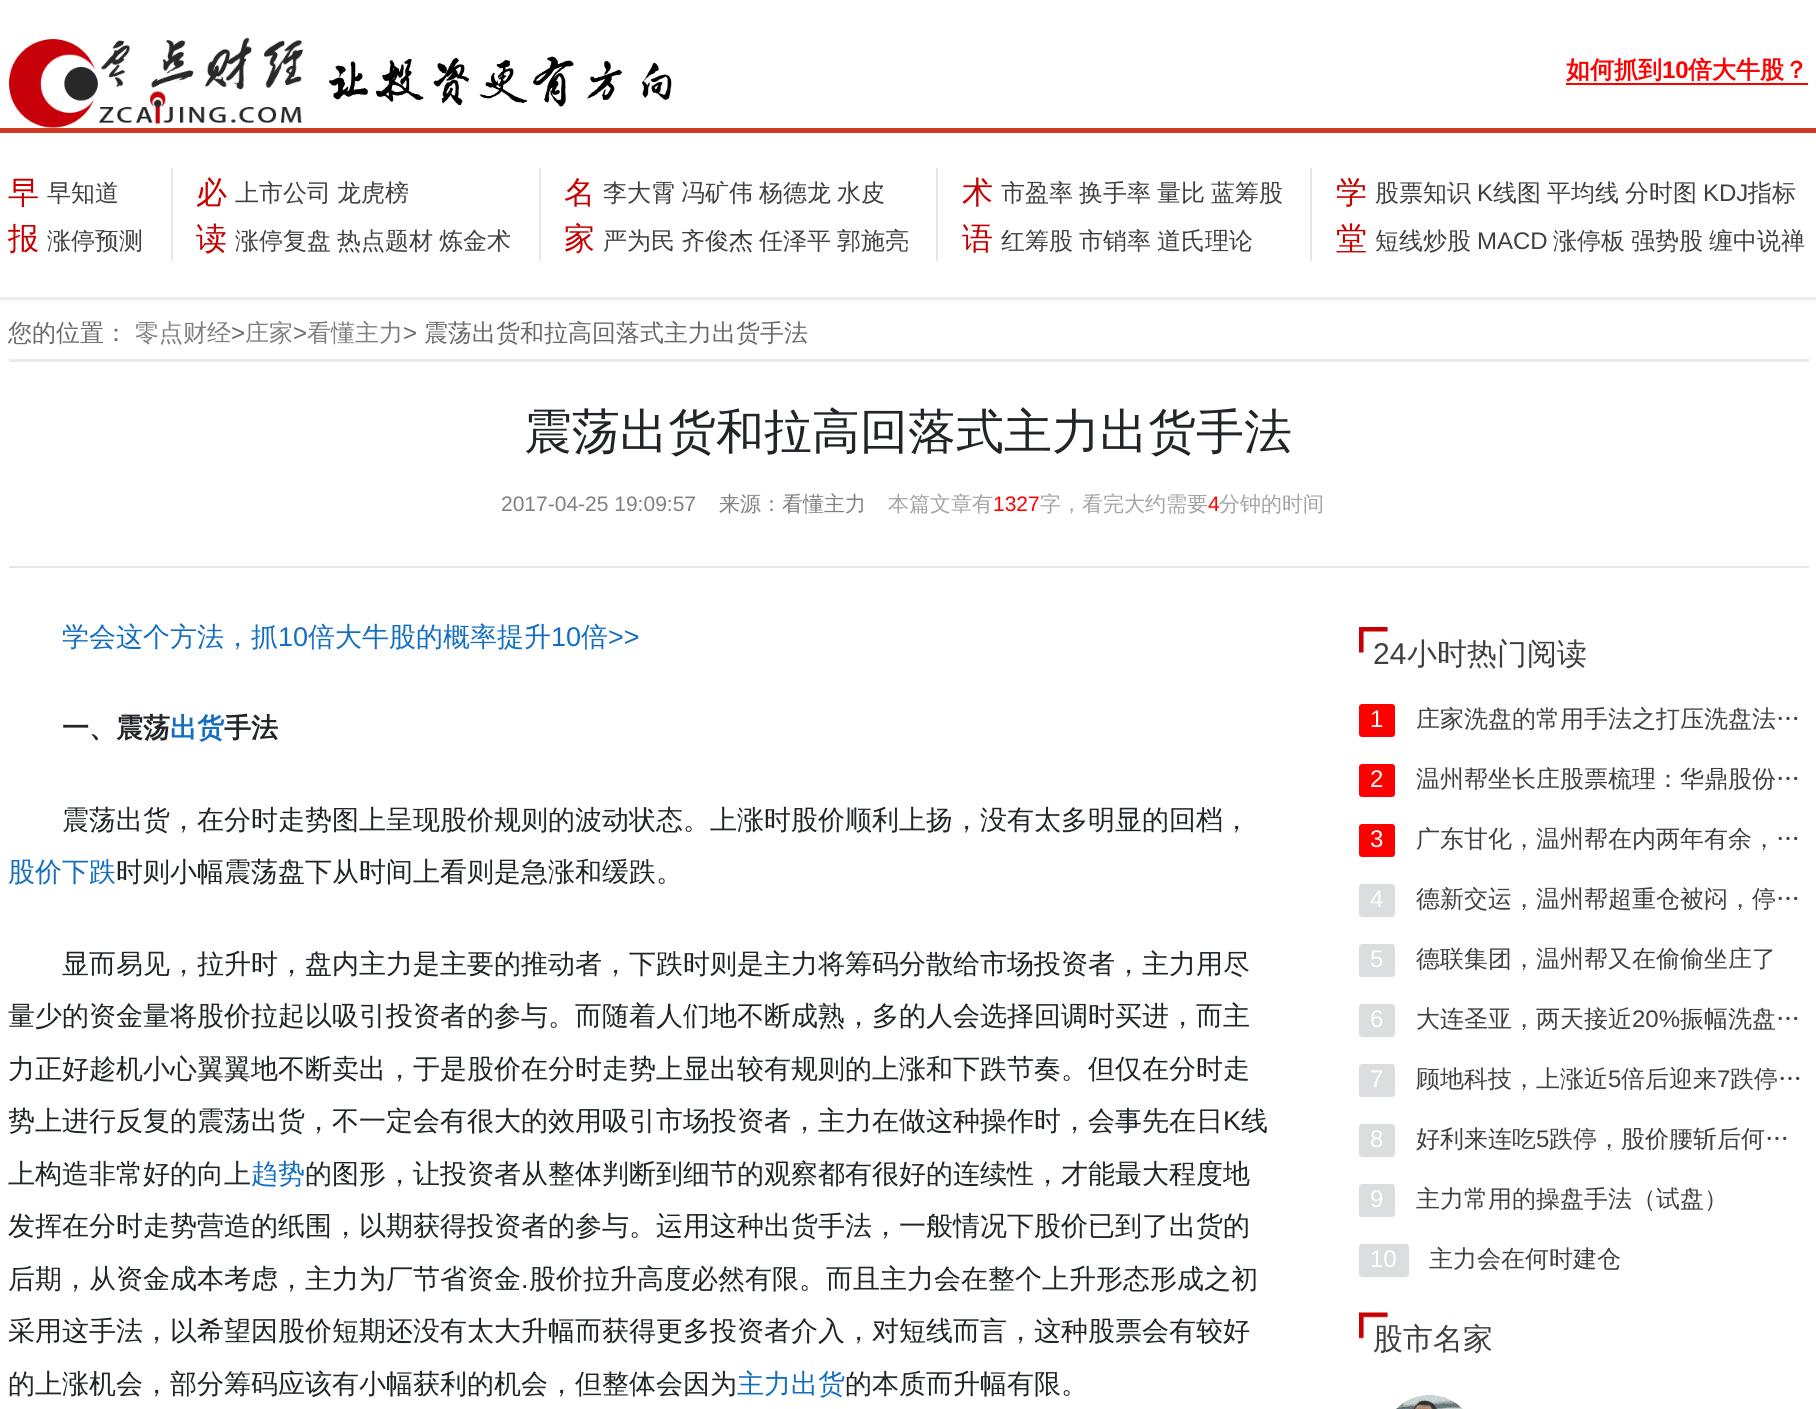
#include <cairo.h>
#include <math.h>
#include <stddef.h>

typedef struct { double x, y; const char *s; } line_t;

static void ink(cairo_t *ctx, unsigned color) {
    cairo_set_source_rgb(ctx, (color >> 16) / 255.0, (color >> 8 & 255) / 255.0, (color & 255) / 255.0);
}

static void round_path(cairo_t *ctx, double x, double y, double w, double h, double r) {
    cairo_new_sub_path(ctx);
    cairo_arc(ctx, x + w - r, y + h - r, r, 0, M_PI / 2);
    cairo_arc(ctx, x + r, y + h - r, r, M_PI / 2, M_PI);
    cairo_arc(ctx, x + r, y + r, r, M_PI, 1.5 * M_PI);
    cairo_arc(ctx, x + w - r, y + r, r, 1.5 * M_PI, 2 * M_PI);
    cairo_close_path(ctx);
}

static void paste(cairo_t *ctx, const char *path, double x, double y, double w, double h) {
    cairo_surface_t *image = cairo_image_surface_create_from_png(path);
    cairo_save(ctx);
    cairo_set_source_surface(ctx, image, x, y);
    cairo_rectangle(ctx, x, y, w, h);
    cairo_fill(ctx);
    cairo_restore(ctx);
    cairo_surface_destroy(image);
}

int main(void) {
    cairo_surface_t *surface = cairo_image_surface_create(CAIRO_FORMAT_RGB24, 1816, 1409);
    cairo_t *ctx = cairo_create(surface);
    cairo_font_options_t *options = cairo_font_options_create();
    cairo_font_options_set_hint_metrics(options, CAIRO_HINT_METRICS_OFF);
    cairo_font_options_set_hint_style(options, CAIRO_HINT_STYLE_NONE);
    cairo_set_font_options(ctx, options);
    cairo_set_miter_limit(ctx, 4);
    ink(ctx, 0xFFFFFF);
    cairo_paint(ctx);
    paste(ctx, "media/1.png", 9, 37, 294, 91);
    paste(ctx, "media/2.png", 329, 56, 343, 51);
    cairo_select_font_face(ctx, "WenQuanYi Zen Hei", CAIRO_FONT_SLANT_NORMAL, CAIRO_FONT_WEIGHT_BOLD);
    cairo_set_font_size(ctx, 24);
    ink(ctx, 0xFF0000);
    cairo_move_to(ctx, 1566, 78);
    cairo_show_text(ctx, "如何抓到");
    cairo_rectangle(ctx, 1566, 83, 242, 2);
    cairo_fill(ctx);
    cairo_select_font_face(ctx, "Liberation Sans", CAIRO_FONT_SLANT_NORMAL, CAIRO_FONT_WEIGHT_BOLD);
    cairo_move_to(ctx, 1662, 78);
    cairo_show_text(ctx, "10");
    cairo_select_font_face(ctx, "WenQuanYi Zen Hei", CAIRO_FONT_SLANT_NORMAL, CAIRO_FONT_WEIGHT_BOLD);
    cairo_move_to(ctx, 1688, 78);
    cairo_show_text(ctx, "倍大牛股？");
    ink(ctx, 0xCF3A27);
    cairo_rectangle(ctx, 0, 128, 1816, 5);
    cairo_fill(ctx);
    cairo_select_font_face(ctx, "WenQuanYi Zen Hei Medium", CAIRO_FONT_SLANT_NORMAL, CAIRO_FONT_WEIGHT_NORMAL);
    cairo_set_font_size(ctx, 31);
    ink(ctx, 0xC60000);
    cairo_move_to(ctx, 8, 203);
    cairo_show_text(ctx, "早");
    cairo_move_to(ctx, 8, 249);
    cairo_show_text(ctx, "报");
    cairo_set_font_size(ctx, 24);
    ink(ctx, 0x404040);
    cairo_move_to(ctx, 47, 201);
    cairo_show_text(ctx, "早知道");
    cairo_move_to(ctx, 47, 249);
    cairo_show_text(ctx, "涨停预测");
    ink(ctx, 0xE8E8E8);
    cairo_rectangle(ctx, 171, 168, 2, 93);
    cairo_fill(ctx);
    cairo_set_font_size(ctx, 31);
    ink(ctx, 0xC60000);
    cairo_move_to(ctx, 196, 203);
    cairo_show_text(ctx, "必");
    cairo_move_to(ctx, 196, 249);
    cairo_show_text(ctx, "读");
    cairo_set_font_size(ctx, 24);
    ink(ctx, 0x404040);
    {
        static const line_t items[] = {
            {235, 201, "上市公司"},
            {337, 201, "龙虎榜"},
            {235, 249, "涨停复盘"},
            {337, 249, "热点题材"},
            {439, 249, "炼金术"},
        };
        for (size_t i = 0; i < sizeof items / sizeof *items; i++) {
            cairo_move_to(ctx, items[i].x, items[i].y);
            cairo_show_text(ctx, items[i].s);
        }
    }
    ink(ctx, 0xE8E8E8);
    cairo_rectangle(ctx, 539, 168, 2, 93);
    cairo_fill(ctx);
    cairo_set_font_size(ctx, 31);
    ink(ctx, 0xC60000);
    cairo_move_to(ctx, 564, 203);
    cairo_show_text(ctx, "名");
    cairo_move_to(ctx, 564, 249);
    cairo_show_text(ctx, "家");
    cairo_set_font_size(ctx, 24);
    ink(ctx, 0x404040);
    {
        static const line_t items[] = {
            {603, 201, "李大霄"},
            {681, 201, "冯矿伟"},
            {759, 201, "杨德龙"},
            {837, 201, "水皮"},
            {603, 249, "严为民"},
            {681, 249, "齐俊杰"},
            {759, 249, "任泽平"},
            {837, 249, "郭施亮"},
        };
        for (size_t i = 0; i < sizeof items / sizeof *items; i++) {
            cairo_move_to(ctx, items[i].x, items[i].y);
            cairo_show_text(ctx, items[i].s);
        }
    }
    ink(ctx, 0xE8E8E8);
    cairo_rectangle(ctx, 936, 168, 2, 93);
    cairo_fill(ctx);
    cairo_set_font_size(ctx, 31);
    ink(ctx, 0xC60000);
    cairo_move_to(ctx, 962, 203);
    cairo_show_text(ctx, "术");
    cairo_move_to(ctx, 962, 249);
    cairo_show_text(ctx, "语");
    cairo_set_font_size(ctx, 24);
    ink(ctx, 0x404040);
    {
        static const line_t items[] = {
            {1001, 201, "市盈率"},
            {1079, 201, "换手率"},
            {1157, 201, "量比"},
            {1211, 201, "蓝筹股"},
            {1001, 249, "红筹股"},
            {1079, 249, "市销率"},
            {1157, 249, "道氏理论"},
        };
        for (size_t i = 0; i < sizeof items / sizeof *items; i++) {
            cairo_move_to(ctx, items[i].x, items[i].y);
            cairo_show_text(ctx, items[i].s);
        }
    }
    ink(ctx, 0xE8E8E8);
    cairo_rectangle(ctx, 1310, 168, 2, 93);
    cairo_fill(ctx);
    cairo_set_font_size(ctx, 31);
    ink(ctx, 0xC60000);
    cairo_move_to(ctx, 1336, 203);
    cairo_show_text(ctx, "学");
    cairo_move_to(ctx, 1336, 249);
    cairo_show_text(ctx, "堂");
    cairo_set_font_size(ctx, 24);
    ink(ctx, 0x404040);
    cairo_move_to(ctx, 1375, 201);
    cairo_show_text(ctx, "股票知识");
    cairo_select_font_face(ctx, "Liberation Sans", CAIRO_FONT_SLANT_NORMAL, CAIRO_FONT_WEIGHT_NORMAL);
    cairo_move_to(ctx, 1477, 201);
    cairo_show_text(ctx, "K");
    cairo_select_font_face(ctx, "WenQuanYi Zen Hei Medium", CAIRO_FONT_SLANT_NORMAL, CAIRO_FONT_WEIGHT_NORMAL);
    {
        static const line_t items[] = {
            {1493, 201, "线图"},
            {1547, 201, "平均线"},
            {1625, 201, "分时图"},
        };
        for (size_t i = 0; i < sizeof items / sizeof *items; i++) {
            cairo_move_to(ctx, items[i].x, items[i].y);
            cairo_show_text(ctx, items[i].s);
        }
    }
    cairo_select_font_face(ctx, "Liberation Sans", CAIRO_FONT_SLANT_NORMAL, CAIRO_FONT_WEIGHT_NORMAL);
    cairo_move_to(ctx, 1703, 201);
    cairo_show_text(ctx, "KDJ");
    cairo_select_font_face(ctx, "WenQuanYi Zen Hei Medium", CAIRO_FONT_SLANT_NORMAL, CAIRO_FONT_WEIGHT_NORMAL);
    cairo_move_to(ctx, 1748, 201);
    cairo_show_text(ctx, "指标");
    cairo_move_to(ctx, 1375, 249);
    cairo_show_text(ctx, "短线炒股");
    cairo_select_font_face(ctx, "Liberation Sans", CAIRO_FONT_SLANT_NORMAL, CAIRO_FONT_WEIGHT_NORMAL);
    cairo_move_to(ctx, 1477, 249);
    cairo_show_text(ctx, "MACD");
    cairo_select_font_face(ctx, "WenQuanYi Zen Hei Medium", CAIRO_FONT_SLANT_NORMAL, CAIRO_FONT_WEIGHT_NORMAL);
    {
        static const line_t items[] = {
            {1553, 249, "涨停板"},
            {1631, 249, "强势股"},
            {1709, 249, "缠中说禅"},
        };
        for (size_t i = 0; i < sizeof items / sizeof *items; i++) {
            cairo_move_to(ctx, items[i].x, items[i].y);
            cairo_show_text(ctx, items[i].s);
        }
    }
    ink(ctx, 0xEAEBEC);
    cairo_rectangle(ctx, 0, 297, 1816, 3);
    cairo_fill(ctx);
    ink(ctx, 0xEAEAEA);
    cairo_rectangle(ctx, 9, 359, 1800, 3);
    cairo_fill(ctx);
    ink(ctx, 0x696969);
    cairo_move_to(ctx, 8, 341);
    cairo_show_text(ctx, "您的位置：");
    ink(ctx, 0x808080);
    cairo_move_to(ctx, 135, 341);
    cairo_show_text(ctx, "零点财经");
    cairo_select_font_face(ctx, "Liberation Sans", CAIRO_FONT_SLANT_NORMAL, CAIRO_FONT_WEIGHT_NORMAL);
    ink(ctx, 0x696969);
    cairo_move_to(ctx, 231, 341);
    cairo_show_text(ctx, ">");
    cairo_select_font_face(ctx, "WenQuanYi Zen Hei Medium", CAIRO_FONT_SLANT_NORMAL, CAIRO_FONT_WEIGHT_NORMAL);
    ink(ctx, 0x808080);
    cairo_move_to(ctx, 245, 341);
    cairo_show_text(ctx, "庄家");
    cairo_select_font_face(ctx, "Liberation Sans", CAIRO_FONT_SLANT_NORMAL, CAIRO_FONT_WEIGHT_NORMAL);
    ink(ctx, 0x696969);
    cairo_move_to(ctx, 293, 341);
    cairo_show_text(ctx, ">");
    cairo_select_font_face(ctx, "WenQuanYi Zen Hei Medium", CAIRO_FONT_SLANT_NORMAL, CAIRO_FONT_WEIGHT_NORMAL);
    ink(ctx, 0x808080);
    cairo_move_to(ctx, 307, 341);
    cairo_show_text(ctx, "看懂主力");
    cairo_select_font_face(ctx, "Liberation Sans", CAIRO_FONT_SLANT_NORMAL, CAIRO_FONT_WEIGHT_NORMAL);
    ink(ctx, 0x696969);
    cairo_move_to(ctx, 403, 341);
    cairo_show_text(ctx, ">");
    cairo_select_font_face(ctx, "WenQuanYi Zen Hei Medium", CAIRO_FONT_SLANT_NORMAL, CAIRO_FONT_WEIGHT_NORMAL);
    cairo_move_to(ctx, 424, 341);
    cairo_show_text(ctx, "震荡出货和拉高回落式主力出货手法");
    cairo_set_font_size(ctx, 48);
    ink(ctx, 0x212529);
    cairo_move_to(ctx, 524, 448);
    cairo_show_text(ctx, "震荡出货和拉高回落式主力出货手法");
    cairo_select_font_face(ctx, "Liberation Sans", CAIRO_FONT_SLANT_NORMAL, CAIRO_FONT_WEIGHT_NORMAL);
    cairo_set_font_size(ctx, 21);
    ink(ctx, 0x808080);
    cairo_move_to(ctx, 501, 511);
    cairo_show_text(ctx, "2017-04-25 19:09:57");
    cairo_select_font_face(ctx, "WenQuanYi Zen Hei Medium", CAIRO_FONT_SLANT_NORMAL, CAIRO_FONT_WEIGHT_NORMAL);
    cairo_move_to(ctx, 719, 511);
    cairo_show_text(ctx, "来源：看懂主力");
    ink(ctx, 0xA3A4A5);
    cairo_move_to(ctx, 888, 511);
    cairo_show_text(ctx, "本篇文章有");
    cairo_select_font_face(ctx, "Liberation Sans", CAIRO_FONT_SLANT_NORMAL, CAIRO_FONT_WEIGHT_NORMAL);
    ink(ctx, 0xFF0000);
    cairo_move_to(ctx, 993, 511);
    cairo_show_text(ctx, "1327");
    cairo_select_font_face(ctx, "WenQuanYi Zen Hei Medium", CAIRO_FONT_SLANT_NORMAL, CAIRO_FONT_WEIGHT_NORMAL);
    ink(ctx, 0xA3A4A5);
    cairo_move_to(ctx, 1040, 511);
    cairo_show_text(ctx, "字，看完大约需要");
    cairo_select_font_face(ctx, "Liberation Sans", CAIRO_FONT_SLANT_NORMAL, CAIRO_FONT_WEIGHT_NORMAL);
    ink(ctx, 0xFF0000);
    cairo_move_to(ctx, 1208, 511);
    cairo_show_text(ctx, "4");
    cairo_select_font_face(ctx, "WenQuanYi Zen Hei Medium", CAIRO_FONT_SLANT_NORMAL, CAIRO_FONT_WEIGHT_NORMAL);
    ink(ctx, 0xA3A4A5);
    cairo_move_to(ctx, 1219, 511);
    cairo_show_text(ctx, "分钟的时间");
    ink(ctx, 0xE6E7E8);
    cairo_rectangle(ctx, 9, 566, 1800, 2);
    cairo_fill(ctx);
    cairo_set_font_size(ctx, 27);
    ink(ctx, 0x136EC2);
    cairo_move_to(ctx, 62, 646);
    cairo_show_text(ctx, "学会这个方法，抓");
    cairo_select_font_face(ctx, "Liberation Sans", CAIRO_FONT_SLANT_NORMAL, CAIRO_FONT_WEIGHT_NORMAL);
    cairo_move_to(ctx, 278, 646);
    cairo_show_text(ctx, "10");
    cairo_select_font_face(ctx, "WenQuanYi Zen Hei Medium", CAIRO_FONT_SLANT_NORMAL, CAIRO_FONT_WEIGHT_NORMAL);
    cairo_move_to(ctx, 308, 646);
    cairo_show_text(ctx, "倍大牛股的概率提升");
    cairo_select_font_face(ctx, "Liberation Sans", CAIRO_FONT_SLANT_NORMAL, CAIRO_FONT_WEIGHT_NORMAL);
    cairo_move_to(ctx, 551, 646);
    cairo_show_text(ctx, "10");
    cairo_select_font_face(ctx, "WenQuanYi Zen Hei Medium", CAIRO_FONT_SLANT_NORMAL, CAIRO_FONT_WEIGHT_NORMAL);
    cairo_move_to(ctx, 581, 646);
    cairo_show_text(ctx, "倍");
    cairo_select_font_face(ctx, "Liberation Sans", CAIRO_FONT_SLANT_NORMAL, CAIRO_FONT_WEIGHT_NORMAL);
    cairo_move_to(ctx, 608, 646);
    cairo_show_text(ctx, ">>");
    cairo_select_font_face(ctx, "WenQuanYi Zen Hei", CAIRO_FONT_SLANT_NORMAL, CAIRO_FONT_WEIGHT_BOLD);
    ink(ctx, 0x212529);
    cairo_move_to(ctx, 62, 737);
    cairo_show_text(ctx, "一、震荡");
    ink(ctx, 0x136EC2);
    cairo_move_to(ctx, 170, 737);
    cairo_show_text(ctx, "出货");
    ink(ctx, 0x212529);
    cairo_move_to(ctx, 224, 737);
    cairo_show_text(ctx, "手法");
    cairo_select_font_face(ctx, "WenQuanYi Zen Hei Medium", CAIRO_FONT_SLANT_NORMAL, CAIRO_FONT_WEIGHT_NORMAL);
    cairo_move_to(ctx, 62, 829);
    cairo_show_text(ctx, "震荡出货，在分时走势图上呈现股价规则的波动状态。上涨时股价顺利上扬，没有太多明显的回档，");
    ink(ctx, 0x136EC2);
    cairo_move_to(ctx, 8, 881);
    cairo_show_text(ctx, "股价下跌");
    ink(ctx, 0x212529);
    {
        static const line_t items[] = {
            {116, 881, "时则小幅震荡盘下从时间上看则是急涨和缓跌。"},
            {62, 973, "显而易见，拉升时，盘内主力是主要的推动者，下跌时则是主力将筹码分散给市场投资者，主力用尽"},
            {8, 1025, "量少的资金量将股价拉起以吸引投资者的参与。而随着人们地不断成熟，多的人会选择回调时买进，而主"},
            {8, 1078, "力正好趁机小心翼翼地不断卖出，于是股价在分时走势上显出较有规则的上涨和下跌节奏。但仅在分时走"},
            {8, 1130, "势上进行反复的震荡出货，不一定会有很大的效用吸引市场投资者，主力在做这种操作时，会事先在日"},
        };
        for (size_t i = 0; i < sizeof items / sizeof *items; i++) {
            cairo_move_to(ctx, items[i].x, items[i].y);
            cairo_show_text(ctx, items[i].s);
        }
    }
    cairo_select_font_face(ctx, "Liberation Sans", CAIRO_FONT_SLANT_NORMAL, CAIRO_FONT_WEIGHT_NORMAL);
    cairo_move_to(ctx, 1223, 1130);
    cairo_show_text(ctx, "K");
    cairo_select_font_face(ctx, "WenQuanYi Zen Hei Medium", CAIRO_FONT_SLANT_NORMAL, CAIRO_FONT_WEIGHT_NORMAL);
    cairo_move_to(ctx, 1241, 1130);
    cairo_show_text(ctx, "线");
    cairo_move_to(ctx, 8, 1183);
    cairo_show_text(ctx, "上构造非常好的向上");
    ink(ctx, 0x136EC2);
    cairo_move_to(ctx, 251, 1183);
    cairo_show_text(ctx, "趋势");
    ink(ctx, 0x212529);
    {
        static const line_t items[] = {
            {305, 1183, "的图形，让投资者从整体判断到细节的观察都有很好的连续性，才能最大程度地"},
            {8, 1235, "发挥在分时走势营造的纸围，以期获得投资者的参与。运用这种出货手法，一般情况下股价已到了出货的"},
            {8, 1288, "后期，从资金成本考虑，主力为厂节省资金"},
        };
        for (size_t i = 0; i < sizeof items / sizeof *items; i++) {
            cairo_move_to(ctx, items[i].x, items[i].y);
            cairo_show_text(ctx, items[i].s);
        }
    }
    cairo_select_font_face(ctx, "Liberation Sans", CAIRO_FONT_SLANT_NORMAL, CAIRO_FONT_WEIGHT_NORMAL);
    cairo_move_to(ctx, 521, 1288);
    cairo_show_text(ctx, ".");
    cairo_select_font_face(ctx, "WenQuanYi Zen Hei Medium", CAIRO_FONT_SLANT_NORMAL, CAIRO_FONT_WEIGHT_NORMAL);
    {
        static const line_t items[] = {
            {529, 1288, "股价拉升高度必然有限。而且主力会在整个上升形态形成之初"},
            {8, 1340, "采用这手法，以希望因股价短期还没有太大升幅而获得更多投资者介入，对短线而言，这种股票会有较好"},
            {8, 1393, "的上涨机会，部分筹码应该有小幅获利的机会，但整体会因为"},
        };
        for (size_t i = 0; i < sizeof items / sizeof *items; i++) {
            cairo_move_to(ctx, items[i].x, items[i].y);
            cairo_show_text(ctx, items[i].s);
        }
    }
    ink(ctx, 0x136EC2);
    cairo_move_to(ctx, 737, 1393);
    cairo_show_text(ctx, "主力出货");
    ink(ctx, 0x212529);
    cairo_move_to(ctx, 845, 1393);
    cairo_show_text(ctx, "的本质而升幅有限。");
    paste(ctx, "media/3.png", 1359, 627, 124, 46);
    cairo_select_font_face(ctx, "Liberation Sans", CAIRO_FONT_SLANT_NORMAL, CAIRO_FONT_WEIGHT_NORMAL);
    cairo_set_font_size(ctx, 30);
    ink(ctx, 0x404040);
    cairo_move_to(ctx, 1373, 664);
    cairo_show_text(ctx, "24");
    cairo_select_font_face(ctx, "WenQuanYi Zen Hei Medium", CAIRO_FONT_SLANT_NORMAL, CAIRO_FONT_WEIGHT_NORMAL);
    cairo_move_to(ctx, 1407, 664);
    cairo_show_text(ctx, "小时热门阅读");
    ink(ctx, 0xFF0000);
    round_path(ctx, 1359, 704, 36, 33, 3);
    cairo_fill(ctx);
    cairo_select_font_face(ctx, "Liberation Sans", CAIRO_FONT_SLANT_NORMAL, CAIRO_FONT_WEIGHT_NORMAL);
    cairo_set_font_size(ctx, 24);
    ink(ctx, 0xFFFFFF);
    cairo_move_to(ctx, 1370, 727);
    cairo_show_text(ctx, "1");
    cairo_select_font_face(ctx, "WenQuanYi Zen Hei Medium", CAIRO_FONT_SLANT_NORMAL, CAIRO_FONT_WEIGHT_NORMAL);
    ink(ctx, 0x404040);
    cairo_move_to(ctx, 1416, 727);
    cairo_show_text(ctx, "庄家洗盘的常用手法之打压洗盘法…");
    ink(ctx, 0xFF0000);
    round_path(ctx, 1359, 764, 36, 33, 3);
    cairo_fill(ctx);
    cairo_select_font_face(ctx, "Liberation Sans", CAIRO_FONT_SLANT_NORMAL, CAIRO_FONT_WEIGHT_NORMAL);
    ink(ctx, 0xFFFFFF);
    cairo_move_to(ctx, 1370, 787);
    cairo_show_text(ctx, "2");
    cairo_select_font_face(ctx, "WenQuanYi Zen Hei Medium", CAIRO_FONT_SLANT_NORMAL, CAIRO_FONT_WEIGHT_NORMAL);
    ink(ctx, 0x404040);
    cairo_move_to(ctx, 1416, 787);
    cairo_show_text(ctx, "温州帮坐长庄股票梳理：华鼎股份…");
    ink(ctx, 0xFF0000);
    round_path(ctx, 1359, 824, 36, 33, 3);
    cairo_fill(ctx);
    cairo_select_font_face(ctx, "Liberation Sans", CAIRO_FONT_SLANT_NORMAL, CAIRO_FONT_WEIGHT_NORMAL);
    ink(ctx, 0xFFFFFF);
    cairo_move_to(ctx, 1370, 847);
    cairo_show_text(ctx, "3");
    cairo_select_font_face(ctx, "WenQuanYi Zen Hei Medium", CAIRO_FONT_SLANT_NORMAL, CAIRO_FONT_WEIGHT_NORMAL);
    ink(ctx, 0x404040);
    cairo_move_to(ctx, 1416, 847);
    cairo_show_text(ctx, "广东甘化，温州帮在内两年有余，…");
    ink(ctx, 0xDCDDDE);
    round_path(ctx, 1359, 884, 36, 33, 3);
    cairo_fill(ctx);
    cairo_select_font_face(ctx, "Liberation Sans", CAIRO_FONT_SLANT_NORMAL, CAIRO_FONT_WEIGHT_NORMAL);
    ink(ctx, 0xFFFFFF);
    cairo_move_to(ctx, 1370, 907);
    cairo_show_text(ctx, "4");
    cairo_select_font_face(ctx, "WenQuanYi Zen Hei Medium", CAIRO_FONT_SLANT_NORMAL, CAIRO_FONT_WEIGHT_NORMAL);
    ink(ctx, 0x404040);
    cairo_move_to(ctx, 1416, 907);
    cairo_show_text(ctx, "德新交运，温州帮超重仓被闷，停…");
    ink(ctx, 0xDCDDDE);
    round_path(ctx, 1359, 944, 36, 33, 3);
    cairo_fill(ctx);
    cairo_select_font_face(ctx, "Liberation Sans", CAIRO_FONT_SLANT_NORMAL, CAIRO_FONT_WEIGHT_NORMAL);
    ink(ctx, 0xFFFFFF);
    cairo_move_to(ctx, 1370, 967);
    cairo_show_text(ctx, "5");
    cairo_select_font_face(ctx, "WenQuanYi Zen Hei Medium", CAIRO_FONT_SLANT_NORMAL, CAIRO_FONT_WEIGHT_NORMAL);
    ink(ctx, 0x404040);
    cairo_move_to(ctx, 1416, 967);
    cairo_show_text(ctx, "德联集团，温州帮又在偷偷坐庄了");
    ink(ctx, 0xDCDDDE);
    round_path(ctx, 1359, 1004, 36, 33, 3);
    cairo_fill(ctx);
    cairo_select_font_face(ctx, "Liberation Sans", CAIRO_FONT_SLANT_NORMAL, CAIRO_FONT_WEIGHT_NORMAL);
    ink(ctx, 0xFFFFFF);
    cairo_move_to(ctx, 1370, 1027);
    cairo_show_text(ctx, "6");
    cairo_select_font_face(ctx, "WenQuanYi Zen Hei Medium", CAIRO_FONT_SLANT_NORMAL, CAIRO_FONT_WEIGHT_NORMAL);
    ink(ctx, 0x404040);
    cairo_move_to(ctx, 1416, 1027);
    cairo_show_text(ctx, "大连圣亚，两天接近");
    cairo_select_font_face(ctx, "Liberation Sans", CAIRO_FONT_SLANT_NORMAL, CAIRO_FONT_WEIGHT_NORMAL);
    cairo_move_to(ctx, 1632, 1027);
    cairo_show_text(ctx, "20%");
    cairo_select_font_face(ctx, "WenQuanYi Zen Hei Medium", CAIRO_FONT_SLANT_NORMAL, CAIRO_FONT_WEIGHT_NORMAL);
    cairo_move_to(ctx, 1680, 1027);
    cairo_show_text(ctx, "振幅洗盘…");
    ink(ctx, 0xDCDDDE);
    round_path(ctx, 1359, 1064, 36, 33, 3);
    cairo_fill(ctx);
    cairo_select_font_face(ctx, "Liberation Sans", CAIRO_FONT_SLANT_NORMAL, CAIRO_FONT_WEIGHT_NORMAL);
    ink(ctx, 0xFFFFFF);
    cairo_move_to(ctx, 1370, 1087);
    cairo_show_text(ctx, "7");
    cairo_select_font_face(ctx, "WenQuanYi Zen Hei Medium", CAIRO_FONT_SLANT_NORMAL, CAIRO_FONT_WEIGHT_NORMAL);
    ink(ctx, 0x404040);
    cairo_move_to(ctx, 1416, 1087);
    cairo_show_text(ctx, "顾地科技，上涨近");
    cairo_select_font_face(ctx, "Liberation Sans", CAIRO_FONT_SLANT_NORMAL, CAIRO_FONT_WEIGHT_NORMAL);
    cairo_move_to(ctx, 1608, 1087);
    cairo_show_text(ctx, "5");
    cairo_select_font_face(ctx, "WenQuanYi Zen Hei Medium", CAIRO_FONT_SLANT_NORMAL, CAIRO_FONT_WEIGHT_NORMAL);
    cairo_move_to(ctx, 1621, 1087);
    cairo_show_text(ctx, "倍后迎来");
    cairo_select_font_face(ctx, "Liberation Sans", CAIRO_FONT_SLANT_NORMAL, CAIRO_FONT_WEIGHT_NORMAL);
    cairo_move_to(ctx, 1717, 1087);
    cairo_show_text(ctx, "7");
    cairo_select_font_face(ctx, "WenQuanYi Zen Hei Medium", CAIRO_FONT_SLANT_NORMAL, CAIRO_FONT_WEIGHT_NORMAL);
    cairo_move_to(ctx, 1730, 1087);
    cairo_show_text(ctx, "跌停…");
    ink(ctx, 0xDCDDDE);
    round_path(ctx, 1359, 1124, 36, 33, 3);
    cairo_fill(ctx);
    cairo_select_font_face(ctx, "Liberation Sans", CAIRO_FONT_SLANT_NORMAL, CAIRO_FONT_WEIGHT_NORMAL);
    ink(ctx, 0xFFFFFF);
    cairo_move_to(ctx, 1370, 1147);
    cairo_show_text(ctx, "8");
    cairo_select_font_face(ctx, "WenQuanYi Zen Hei Medium", CAIRO_FONT_SLANT_NORMAL, CAIRO_FONT_WEIGHT_NORMAL);
    ink(ctx, 0x404040);
    cairo_move_to(ctx, 1416, 1147);
    cairo_show_text(ctx, "好利来连吃");
    cairo_select_font_face(ctx, "Liberation Sans", CAIRO_FONT_SLANT_NORMAL, CAIRO_FONT_WEIGHT_NORMAL);
    cairo_move_to(ctx, 1536, 1147);
    cairo_show_text(ctx, "5");
    cairo_select_font_face(ctx, "WenQuanYi Zen Hei Medium", CAIRO_FONT_SLANT_NORMAL, CAIRO_FONT_WEIGHT_NORMAL);
    cairo_move_to(ctx, 1549, 1147);
    cairo_show_text(ctx, "跌停，股价腰斩后何…");
    ink(ctx, 0xDCDDDE);
    round_path(ctx, 1359, 1184, 36, 33, 3);
    cairo_fill(ctx);
    cairo_select_font_face(ctx, "Liberation Sans", CAIRO_FONT_SLANT_NORMAL, CAIRO_FONT_WEIGHT_NORMAL);
    ink(ctx, 0xFFFFFF);
    cairo_move_to(ctx, 1370, 1207);
    cairo_show_text(ctx, "9");
    cairo_select_font_face(ctx, "WenQuanYi Zen Hei Medium", CAIRO_FONT_SLANT_NORMAL, CAIRO_FONT_WEIGHT_NORMAL);
    ink(ctx, 0x404040);
    cairo_move_to(ctx, 1416, 1207);
    cairo_show_text(ctx, "主力常用的操盘手法（试盘）");
    ink(ctx, 0xDCDDDE);
    round_path(ctx, 1359, 1244, 50, 33, 3);
    cairo_fill(ctx);
    cairo_select_font_face(ctx, "Liberation Sans", CAIRO_FONT_SLANT_NORMAL, CAIRO_FONT_WEIGHT_NORMAL);
    ink(ctx, 0xFFFFFF);
    cairo_move_to(ctx, 1370, 1267);
    cairo_show_text(ctx, "10");
    cairo_select_font_face(ctx, "WenQuanYi Zen Hei Medium", CAIRO_FONT_SLANT_NORMAL, CAIRO_FONT_WEIGHT_NORMAL);
    ink(ctx, 0x404040);
    cairo_move_to(ctx, 1429, 1267);
    cairo_show_text(ctx, "主力会在何时建仓");
    paste(ctx, "media/4.png", 1359, 1312, 124, 47);
    cairo_set_font_size(ctx, 30);
    cairo_move_to(ctx, 1373, 1349);
    cairo_show_text(ctx, "股市名家");
    paste(ctx, "media/5.png", 1396, 1395, 67, 14);
    cairo_surface_write_to_png(surface, "image.png");
    cairo_font_options_destroy(options);
    cairo_destroy(ctx);
    cairo_surface_destroy(surface);
    return 0;
}
